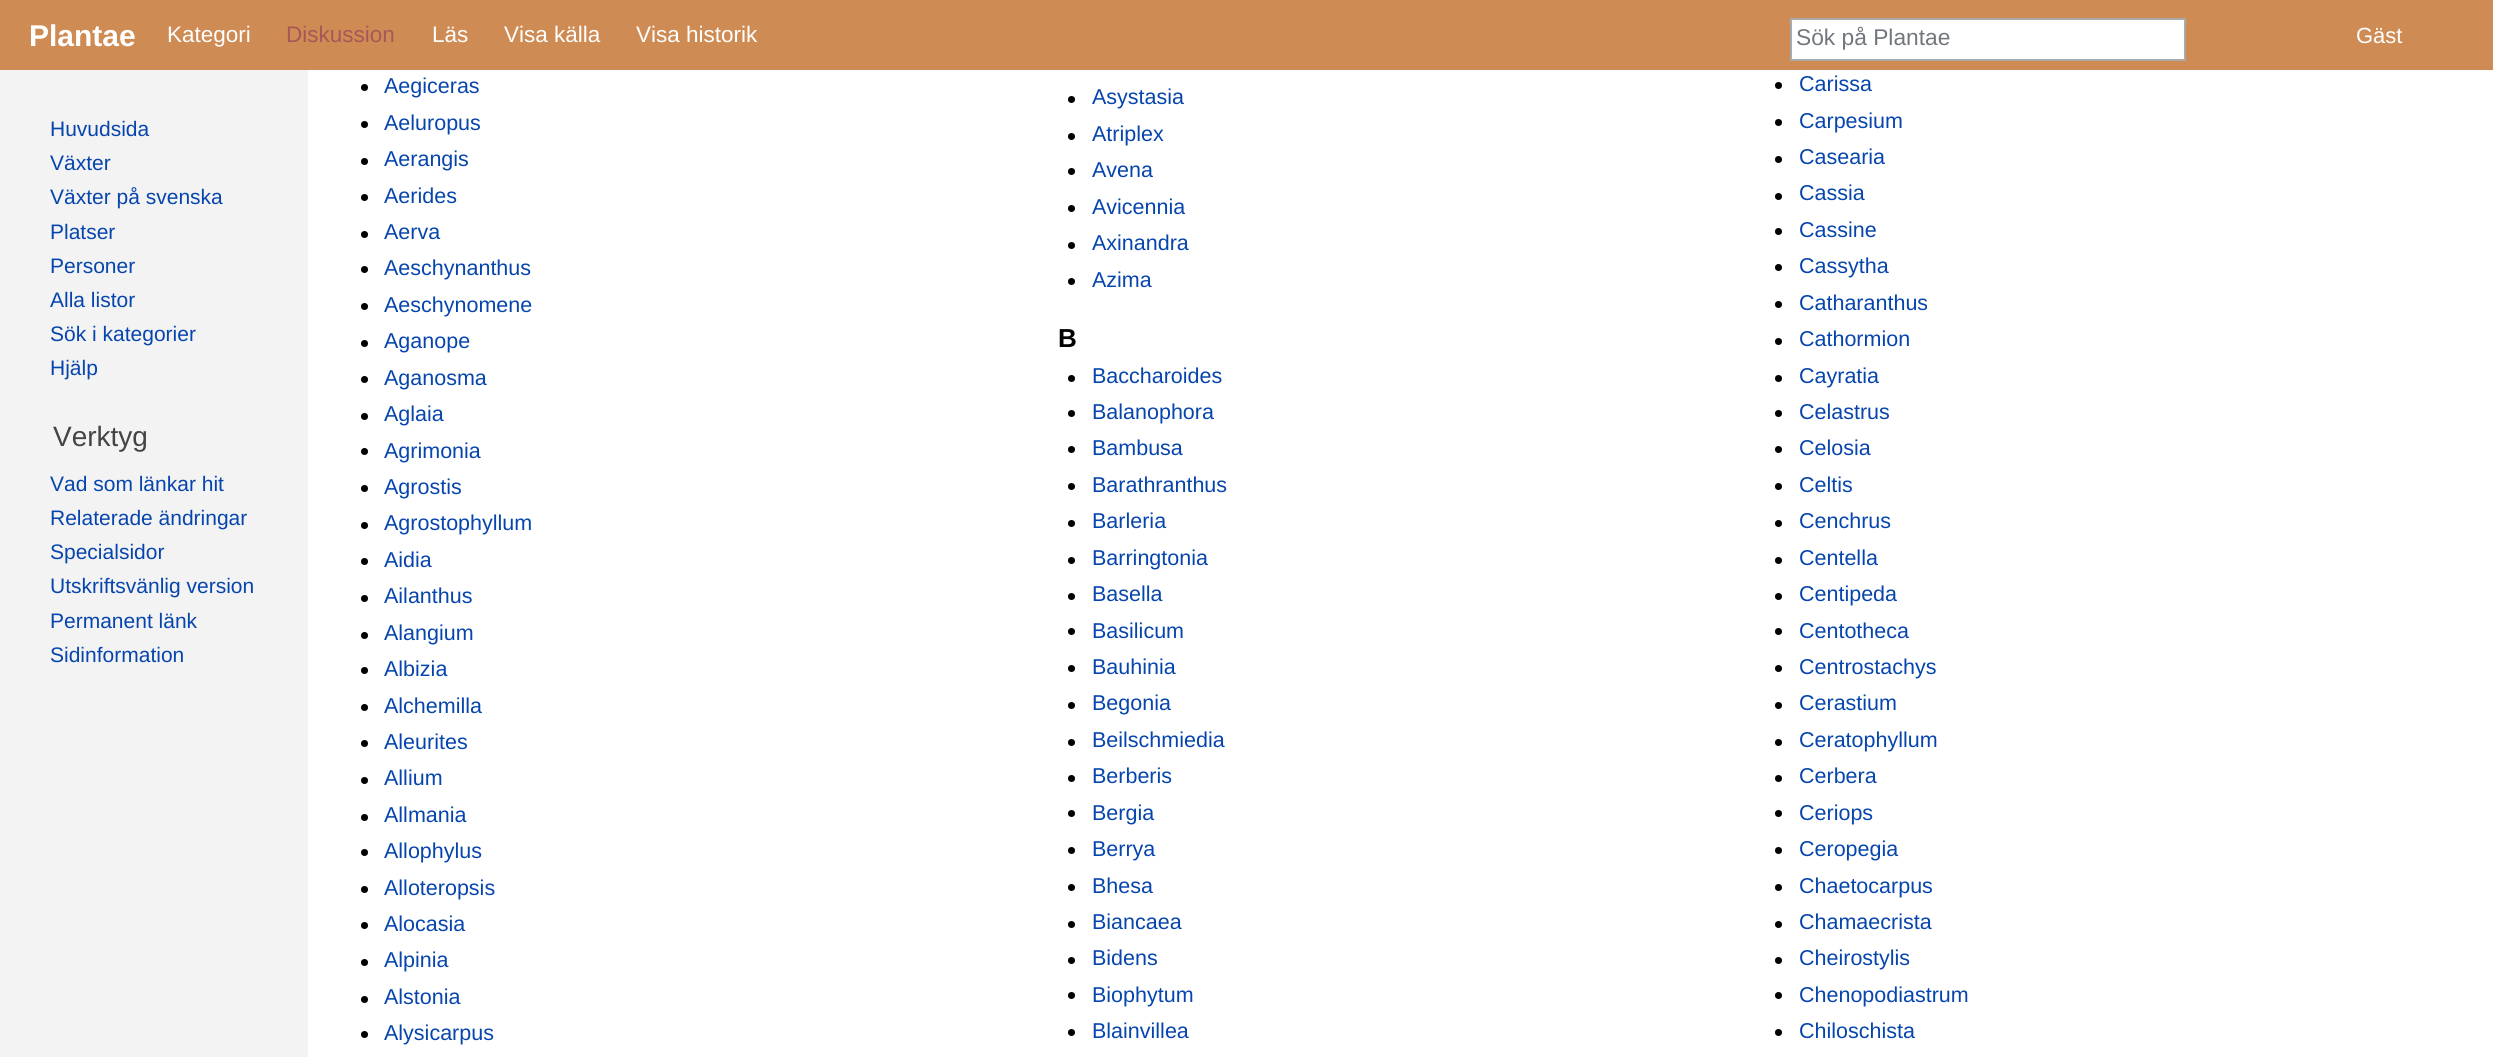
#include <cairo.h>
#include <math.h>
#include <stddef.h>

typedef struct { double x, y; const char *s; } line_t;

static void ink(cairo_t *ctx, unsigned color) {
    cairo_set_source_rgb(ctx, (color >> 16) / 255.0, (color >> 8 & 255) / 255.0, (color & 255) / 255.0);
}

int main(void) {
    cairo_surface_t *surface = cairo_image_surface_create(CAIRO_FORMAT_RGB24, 2493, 1057);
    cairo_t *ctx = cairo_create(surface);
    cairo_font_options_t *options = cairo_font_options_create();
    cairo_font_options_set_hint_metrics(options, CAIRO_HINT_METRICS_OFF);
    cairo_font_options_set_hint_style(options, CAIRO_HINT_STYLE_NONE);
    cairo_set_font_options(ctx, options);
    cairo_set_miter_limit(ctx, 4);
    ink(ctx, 0xF3F3F3);
    cairo_paint(ctx);
    ink(ctx, 0xCF8B54);
    cairo_rectangle(ctx, 0, 0, 2493, 70);
    cairo_fill(ctx);
    cairo_select_font_face(ctx, "Liberation Sans", CAIRO_FONT_SLANT_NORMAL, CAIRO_FONT_WEIGHT_BOLD);
    cairo_set_font_size(ctx, 30);
    ink(ctx, 0xFFFFFF);
    cairo_move_to(ctx, 29, 46);
    cairo_show_text(ctx, "Plantae");
    cairo_select_font_face(ctx, "Liberation Sans", CAIRO_FONT_SLANT_NORMAL, CAIRO_FONT_WEIGHT_NORMAL);
    cairo_set_font_size(ctx, 22.5);
    cairo_move_to(ctx, 167, 42);
    cairo_show_text(ctx, "Kategori");
    ink(ctx, 0xA55858);
    cairo_move_to(ctx, 286, 42);
    cairo_show_text(ctx, "Diskussion");
    ink(ctx, 0xFFFFFF);
    {
        static const line_t items[] = {
            {432, 42, "Läs"},
            {504, 42, "Visa källa"},
            {636, 42, "Visa historik"},
        };
        for (size_t i = 0; i < sizeof items / sizeof *items; i++) {
            cairo_move_to(ctx, items[i].x, items[i].y);
            cairo_show_text(ctx, items[i].s);
        }
    }
    cairo_rectangle(ctx, 1791, 19, 394, 41);
    cairo_fill_preserve(ctx);
    ink(ctx, 0xAAAAAA);
    cairo_stroke(ctx);
    cairo_set_font_size(ctx, 22.75);
    ink(ctx, 0x72777D);
    cairo_move_to(ctx, 1796, 45);
    cairo_show_text(ctx, "Sök på Plantae");
    cairo_set_font_size(ctx, 22);
    ink(ctx, 0xFFFFFF);
    cairo_move_to(ctx, 2356, 43);
    cairo_show_text(ctx, "Gäst");
    cairo_set_font_size(ctx, 21);
    ink(ctx, 0x0645AD);
    {
        static const line_t items[] = {
            {50, 136, "Huvudsida"},
            {50, 170, "Växter"},
            {50, 204, "Växter på svenska"},
            {50, 239, "Platser"},
            {50, 273, "Personer"},
            {50, 307, "Alla listor"},
            {50, 341, "Sök i kategorier"},
            {50, 375, "Hjälp"},
        };
        for (size_t i = 0; i < sizeof items / sizeof *items; i++) {
            cairo_move_to(ctx, items[i].x, items[i].y);
            cairo_show_text(ctx, items[i].s);
        }
    }
    cairo_set_font_size(ctx, 28);
    ink(ctx, 0x444444);
    cairo_move_to(ctx, 53, 446);
    cairo_show_text(ctx, "Verktyg");
    cairo_set_font_size(ctx, 21);
    ink(ctx, 0x0645AD);
    {
        static const line_t items[] = {
            {50, 491, "Vad som länkar hit"},
            {50, 525, "Relaterade ändringar"},
            {50, 559, "Specialsidor"},
            {50, 593, "Utskriftsvänlig version"},
            {50, 628, "Permanent länk"},
            {50, 662, "Sidinformation"},
        };
        for (size_t i = 0; i < sizeof items / sizeof *items; i++) {
            cairo_move_to(ctx, items[i].x, items[i].y);
            cairo_show_text(ctx, items[i].s);
        }
    }
    ink(ctx, 0xFFFFFF);
    cairo_rectangle(ctx, 308, 70, 2185, 987);
    cairo_fill(ctx);
    ink(ctx, 0x000000);
    cairo_arc(ctx, 364.5, 87.5, 3.5, 0, 2 * M_PI);
    cairo_fill(ctx);
    cairo_set_font_size(ctx, 21.5);
    ink(ctx, 0x0645AD);
    cairo_move_to(ctx, 384, 93);
    cairo_show_text(ctx, "Aegiceras");
    ink(ctx, 0x000000);
    cairo_new_path(ctx);
    cairo_arc(ctx, 1071.5, 99.5, 3.5, 0, 2 * M_PI);
    cairo_fill(ctx);
    ink(ctx, 0x0645AD);
    cairo_move_to(ctx, 1092, 104);
    cairo_show_text(ctx, "Asystasia");
    ink(ctx, 0x000000);
    cairo_new_path(ctx);
    cairo_arc(ctx, 364.5, 124.5, 3.5, 0, 2 * M_PI);
    cairo_fill(ctx);
    ink(ctx, 0x0645AD);
    cairo_move_to(ctx, 384, 130);
    cairo_show_text(ctx, "Aeluropus");
    ink(ctx, 0x000000);
    cairo_new_path(ctx);
    cairo_arc(ctx, 1071.5, 136.5, 3.5, 0, 2 * M_PI);
    cairo_fill(ctx);
    ink(ctx, 0x0645AD);
    cairo_move_to(ctx, 1092, 141);
    cairo_show_text(ctx, "Atriplex");
    ink(ctx, 0x000000);
    cairo_new_path(ctx);
    cairo_arc(ctx, 364.5, 161.5, 3.5, 0, 2 * M_PI);
    cairo_fill(ctx);
    ink(ctx, 0x0645AD);
    cairo_move_to(ctx, 384, 166);
    cairo_show_text(ctx, "Aerangis");
    ink(ctx, 0x000000);
    cairo_new_path(ctx);
    cairo_arc(ctx, 1071.5, 171.5, 3.5, 0, 2 * M_PI);
    cairo_fill(ctx);
    ink(ctx, 0x0645AD);
    cairo_move_to(ctx, 1092, 177);
    cairo_show_text(ctx, "Avena");
    ink(ctx, 0x000000);
    cairo_new_path(ctx);
    cairo_arc(ctx, 364.5, 197.5, 3.5, 0, 2 * M_PI);
    cairo_fill(ctx);
    ink(ctx, 0x0645AD);
    cairo_move_to(ctx, 384, 203);
    cairo_show_text(ctx, "Aerides");
    ink(ctx, 0x000000);
    cairo_new_path(ctx);
    cairo_arc(ctx, 1071.5, 208.5, 3.5, 0, 2 * M_PI);
    cairo_fill(ctx);
    ink(ctx, 0x0645AD);
    cairo_move_to(ctx, 1092, 214);
    cairo_show_text(ctx, "Avicennia");
    ink(ctx, 0x000000);
    cairo_new_path(ctx);
    cairo_arc(ctx, 364.5, 234.5, 3.5, 0, 2 * M_PI);
    cairo_fill(ctx);
    ink(ctx, 0x0645AD);
    cairo_move_to(ctx, 384, 239);
    cairo_show_text(ctx, "Aerva");
    ink(ctx, 0x000000);
    cairo_new_path(ctx);
    cairo_arc(ctx, 1071.5, 245.5, 3.5, 0, 2 * M_PI);
    cairo_fill(ctx);
    ink(ctx, 0x0645AD);
    cairo_move_to(ctx, 1092, 250);
    cairo_show_text(ctx, "Axinandra");
    ink(ctx, 0x000000);
    cairo_new_path(ctx);
    cairo_arc(ctx, 364.5, 269.5, 3.5, 0, 2 * M_PI);
    cairo_fill(ctx);
    ink(ctx, 0x0645AD);
    cairo_move_to(ctx, 384, 275);
    cairo_show_text(ctx, "Aeschynanthus");
    ink(ctx, 0x000000);
    cairo_new_path(ctx);
    cairo_arc(ctx, 1071.5, 281.5, 3.5, 0, 2 * M_PI);
    cairo_fill(ctx);
    ink(ctx, 0x0645AD);
    cairo_move_to(ctx, 1092, 287);
    cairo_show_text(ctx, "Azima");
    ink(ctx, 0x000000);
    cairo_new_path(ctx);
    cairo_arc(ctx, 364.5, 306.5, 3.5, 0, 2 * M_PI);
    cairo_fill(ctx);
    ink(ctx, 0x0645AD);
    cairo_move_to(ctx, 384, 312);
    cairo_show_text(ctx, "Aeschynomene");
    ink(ctx, 0x000000);
    cairo_new_path(ctx);
    cairo_arc(ctx, 364.5, 343.5, 3.5, 0, 2 * M_PI);
    cairo_fill(ctx);
    ink(ctx, 0x0645AD);
    cairo_move_to(ctx, 384, 348);
    cairo_show_text(ctx, "Aganope");
    ink(ctx, 0x000000);
    cairo_new_path(ctx);
    cairo_arc(ctx, 364.5, 379.5, 3.5, 0, 2 * M_PI);
    cairo_fill(ctx);
    ink(ctx, 0x0645AD);
    cairo_move_to(ctx, 384, 385);
    cairo_show_text(ctx, "Aganosma");
    ink(ctx, 0x000000);
    cairo_new_path(ctx);
    cairo_arc(ctx, 364.5, 416.5, 3.5, 0, 2 * M_PI);
    cairo_fill(ctx);
    ink(ctx, 0x0645AD);
    cairo_move_to(ctx, 384, 421);
    cairo_show_text(ctx, "Aglaia");
    ink(ctx, 0x000000);
    cairo_new_path(ctx);
    cairo_arc(ctx, 364.5, 451.5, 3.5, 0, 2 * M_PI);
    cairo_fill(ctx);
    ink(ctx, 0x0645AD);
    cairo_move_to(ctx, 384, 458);
    cairo_show_text(ctx, "Agrimonia");
    ink(ctx, 0x000000);
    cairo_new_path(ctx);
    cairo_arc(ctx, 364.5, 488.5, 3.5, 0, 2 * M_PI);
    cairo_fill(ctx);
    ink(ctx, 0x0645AD);
    cairo_move_to(ctx, 384, 494);
    cairo_show_text(ctx, "Agrostis");
    ink(ctx, 0x000000);
    cairo_new_path(ctx);
    cairo_arc(ctx, 364.5, 525.5, 3.5, 0, 2 * M_PI);
    cairo_fill(ctx);
    ink(ctx, 0x0645AD);
    cairo_move_to(ctx, 384, 530);
    cairo_show_text(ctx, "Agrostophyllum");
    ink(ctx, 0x000000);
    cairo_new_path(ctx);
    cairo_arc(ctx, 364.5, 561.5, 3.5, 0, 2 * M_PI);
    cairo_fill(ctx);
    ink(ctx, 0x0645AD);
    cairo_move_to(ctx, 384, 567);
    cairo_show_text(ctx, "Aidia");
    ink(ctx, 0x000000);
    cairo_new_path(ctx);
    cairo_arc(ctx, 364.5, 598.5, 3.5, 0, 2 * M_PI);
    cairo_fill(ctx);
    ink(ctx, 0x0645AD);
    cairo_move_to(ctx, 384, 603);
    cairo_show_text(ctx, "Ailanthus");
    ink(ctx, 0x000000);
    cairo_new_path(ctx);
    cairo_arc(ctx, 364.5, 635.5, 3.5, 0, 2 * M_PI);
    cairo_fill(ctx);
    ink(ctx, 0x0645AD);
    cairo_move_to(ctx, 384, 640);
    cairo_show_text(ctx, "Alangium");
    ink(ctx, 0x000000);
    cairo_new_path(ctx);
    cairo_arc(ctx, 364.5, 670.5, 3.5, 0, 2 * M_PI);
    cairo_fill(ctx);
    ink(ctx, 0x0645AD);
    cairo_move_to(ctx, 384, 676);
    cairo_show_text(ctx, "Albizia");
    ink(ctx, 0x000000);
    cairo_new_path(ctx);
    cairo_arc(ctx, 364.5, 707.5, 3.5, 0, 2 * M_PI);
    cairo_fill(ctx);
    ink(ctx, 0x0645AD);
    cairo_move_to(ctx, 384, 713);
    cairo_show_text(ctx, "Alchemilla");
    ink(ctx, 0x000000);
    cairo_new_path(ctx);
    cairo_arc(ctx, 364.5, 743.5, 3.5, 0, 2 * M_PI);
    cairo_fill(ctx);
    ink(ctx, 0x0645AD);
    cairo_move_to(ctx, 384, 749);
    cairo_show_text(ctx, "Aleurites");
    ink(ctx, 0x000000);
    cairo_new_path(ctx);
    cairo_arc(ctx, 364.5, 780.5, 3.5, 0, 2 * M_PI);
    cairo_fill(ctx);
    ink(ctx, 0x0645AD);
    cairo_move_to(ctx, 384, 785);
    cairo_show_text(ctx, "Allium");
    ink(ctx, 0x000000);
    cairo_new_path(ctx);
    cairo_arc(ctx, 364.5, 817.5, 3.5, 0, 2 * M_PI);
    cairo_fill(ctx);
    ink(ctx, 0x0645AD);
    cairo_move_to(ctx, 384, 822);
    cairo_show_text(ctx, "Allmania");
    ink(ctx, 0x000000);
    cairo_new_path(ctx);
    cairo_arc(ctx, 364.5, 852.5, 3.5, 0, 2 * M_PI);
    cairo_fill(ctx);
    ink(ctx, 0x0645AD);
    cairo_move_to(ctx, 384, 858);
    cairo_show_text(ctx, "Allophylus");
    ink(ctx, 0x000000);
    cairo_new_path(ctx);
    cairo_arc(ctx, 364.5, 889.5, 3.5, 0, 2 * M_PI);
    cairo_fill(ctx);
    ink(ctx, 0x0645AD);
    cairo_move_to(ctx, 384, 895);
    cairo_show_text(ctx, "Alloteropsis");
    ink(ctx, 0x000000);
    cairo_new_path(ctx);
    cairo_arc(ctx, 364.5, 925.5, 3.5, 0, 2 * M_PI);
    cairo_fill(ctx);
    ink(ctx, 0x0645AD);
    cairo_move_to(ctx, 384, 931);
    cairo_show_text(ctx, "Alocasia");
    ink(ctx, 0x000000);
    cairo_new_path(ctx);
    cairo_arc(ctx, 364.5, 962.5, 3.5, 0, 2 * M_PI);
    cairo_fill(ctx);
    ink(ctx, 0x0645AD);
    cairo_move_to(ctx, 384, 967);
    cairo_show_text(ctx, "Alpinia");
    ink(ctx, 0x000000);
    cairo_new_path(ctx);
    cairo_arc(ctx, 364.5, 999.5, 3.5, 0, 2 * M_PI);
    cairo_fill(ctx);
    ink(ctx, 0x0645AD);
    cairo_move_to(ctx, 384, 1004);
    cairo_show_text(ctx, "Alstonia");
    ink(ctx, 0x000000);
    cairo_new_path(ctx);
    cairo_arc(ctx, 364.5, 1034.5, 3.5, 0, 2 * M_PI);
    cairo_fill(ctx);
    ink(ctx, 0x0645AD);
    cairo_move_to(ctx, 384, 1040);
    cairo_show_text(ctx, "Alysicarpus");
    ink(ctx, 0x000000);
    cairo_new_path(ctx);
    cairo_arc(ctx, 1778.5, 85.5, 3.5, 0, 2 * M_PI);
    cairo_fill(ctx);
    ink(ctx, 0x0645AD);
    cairo_move_to(ctx, 1799, 91);
    cairo_show_text(ctx, "Carissa");
    ink(ctx, 0x000000);
    cairo_new_path(ctx);
    cairo_arc(ctx, 1778.5, 122.5, 3.5, 0, 2 * M_PI);
    cairo_fill(ctx);
    ink(ctx, 0x0645AD);
    cairo_move_to(ctx, 1799, 128);
    cairo_show_text(ctx, "Carpesium");
    ink(ctx, 0x000000);
    cairo_new_path(ctx);
    cairo_arc(ctx, 1778.5, 159.5, 3.5, 0, 2 * M_PI);
    cairo_fill(ctx);
    ink(ctx, 0x0645AD);
    cairo_move_to(ctx, 1799, 164);
    cairo_show_text(ctx, "Casearia");
    ink(ctx, 0x000000);
    cairo_new_path(ctx);
    cairo_arc(ctx, 1778.5, 196.5, 3.5, 0, 2 * M_PI);
    cairo_fill(ctx);
    ink(ctx, 0x0645AD);
    cairo_move_to(ctx, 1799, 200);
    cairo_show_text(ctx, "Cassia");
    ink(ctx, 0x000000);
    cairo_new_path(ctx);
    cairo_arc(ctx, 1778.5, 231.5, 3.5, 0, 2 * M_PI);
    cairo_fill(ctx);
    ink(ctx, 0x0645AD);
    cairo_move_to(ctx, 1799, 237);
    cairo_show_text(ctx, "Cassine");
    ink(ctx, 0x000000);
    cairo_new_path(ctx);
    cairo_arc(ctx, 1778.5, 267.5, 3.5, 0, 2 * M_PI);
    cairo_fill(ctx);
    ink(ctx, 0x0645AD);
    cairo_move_to(ctx, 1799, 273);
    cairo_show_text(ctx, "Cassytha");
    ink(ctx, 0x000000);
    cairo_new_path(ctx);
    cairo_arc(ctx, 1778.5, 304.5, 3.5, 0, 2 * M_PI);
    cairo_fill(ctx);
    ink(ctx, 0x0645AD);
    cairo_move_to(ctx, 1799, 310);
    cairo_show_text(ctx, "Catharanthus");
    ink(ctx, 0x000000);
    cairo_new_path(ctx);
    cairo_arc(ctx, 1778.5, 341.5, 3.5, 0, 2 * M_PI);
    cairo_fill(ctx);
    ink(ctx, 0x0645AD);
    cairo_move_to(ctx, 1799, 346);
    cairo_show_text(ctx, "Cathormion");
    ink(ctx, 0x000000);
    cairo_new_path(ctx);
    cairo_arc(ctx, 1778.5, 378.5, 3.5, 0, 2 * M_PI);
    cairo_fill(ctx);
    ink(ctx, 0x0645AD);
    cairo_move_to(ctx, 1799, 383);
    cairo_show_text(ctx, "Cayratia");
    ink(ctx, 0x000000);
    cairo_new_path(ctx);
    cairo_arc(ctx, 1778.5, 413.5, 3.5, 0, 2 * M_PI);
    cairo_fill(ctx);
    ink(ctx, 0x0645AD);
    cairo_move_to(ctx, 1799, 419);
    cairo_show_text(ctx, "Celastrus");
    ink(ctx, 0x000000);
    cairo_new_path(ctx);
    cairo_arc(ctx, 1778.5, 449.5, 3.5, 0, 2 * M_PI);
    cairo_fill(ctx);
    ink(ctx, 0x0645AD);
    cairo_move_to(ctx, 1799, 455);
    cairo_show_text(ctx, "Celosia");
    ink(ctx, 0x000000);
    cairo_new_path(ctx);
    cairo_arc(ctx, 1778.5, 486.5, 3.5, 0, 2 * M_PI);
    cairo_fill(ctx);
    ink(ctx, 0x0645AD);
    cairo_move_to(ctx, 1799, 492);
    cairo_show_text(ctx, "Celtis");
    ink(ctx, 0x000000);
    cairo_new_path(ctx);
    cairo_arc(ctx, 1778.5, 523.5, 3.5, 0, 2 * M_PI);
    cairo_fill(ctx);
    ink(ctx, 0x0645AD);
    cairo_move_to(ctx, 1799, 528);
    cairo_show_text(ctx, "Cenchrus");
    ink(ctx, 0x000000);
    cairo_new_path(ctx);
    cairo_arc(ctx, 1778.5, 560.5, 3.5, 0, 2 * M_PI);
    cairo_fill(ctx);
    ink(ctx, 0x0645AD);
    cairo_move_to(ctx, 1799, 565);
    cairo_show_text(ctx, "Centella");
    ink(ctx, 0x000000);
    cairo_new_path(ctx);
    cairo_arc(ctx, 1778.5, 596.5, 3.5, 0, 2 * M_PI);
    cairo_fill(ctx);
    ink(ctx, 0x0645AD);
    cairo_move_to(ctx, 1799, 601);
    cairo_show_text(ctx, "Centipeda");
    ink(ctx, 0x000000);
    cairo_new_path(ctx);
    cairo_arc(ctx, 1778.5, 631.5, 3.5, 0, 2 * M_PI);
    cairo_fill(ctx);
    ink(ctx, 0x0645AD);
    cairo_move_to(ctx, 1799, 638);
    cairo_show_text(ctx, "Centotheca");
    ink(ctx, 0x000000);
    cairo_new_path(ctx);
    cairo_arc(ctx, 1778.5, 668.5, 3.5, 0, 2 * M_PI);
    cairo_fill(ctx);
    ink(ctx, 0x0645AD);
    cairo_move_to(ctx, 1799, 674);
    cairo_show_text(ctx, "Centrostachys");
    ink(ctx, 0x000000);
    cairo_new_path(ctx);
    cairo_arc(ctx, 1778.5, 705.5, 3.5, 0, 2 * M_PI);
    cairo_fill(ctx);
    ink(ctx, 0x0645AD);
    cairo_move_to(ctx, 1799, 710);
    cairo_show_text(ctx, "Cerastium");
    ink(ctx, 0x000000);
    cairo_new_path(ctx);
    cairo_arc(ctx, 1778.5, 742.5, 3.5, 0, 2 * M_PI);
    cairo_fill(ctx);
    ink(ctx, 0x0645AD);
    cairo_move_to(ctx, 1799, 747);
    cairo_show_text(ctx, "Ceratophyllum");
    ink(ctx, 0x000000);
    cairo_new_path(ctx);
    cairo_arc(ctx, 1778.5, 778.5, 3.5, 0, 2 * M_PI);
    cairo_fill(ctx);
    ink(ctx, 0x0645AD);
    cairo_move_to(ctx, 1799, 783);
    cairo_show_text(ctx, "Cerbera");
    ink(ctx, 0x000000);
    cairo_new_path(ctx);
    cairo_arc(ctx, 1778.5, 813.5, 3.5, 0, 2 * M_PI);
    cairo_fill(ctx);
    ink(ctx, 0x0645AD);
    cairo_move_to(ctx, 1799, 820);
    cairo_show_text(ctx, "Ceriops");
    ink(ctx, 0x000000);
    cairo_new_path(ctx);
    cairo_arc(ctx, 1778.5, 850.5, 3.5, 0, 2 * M_PI);
    cairo_fill(ctx);
    ink(ctx, 0x0645AD);
    cairo_move_to(ctx, 1799, 856);
    cairo_show_text(ctx, "Ceropegia");
    ink(ctx, 0x000000);
    cairo_new_path(ctx);
    cairo_arc(ctx, 1778.5, 887.5, 3.5, 0, 2 * M_PI);
    cairo_fill(ctx);
    ink(ctx, 0x0645AD);
    cairo_move_to(ctx, 1799, 893);
    cairo_show_text(ctx, "Chaetocarpus");
    ink(ctx, 0x000000);
    cairo_new_path(ctx);
    cairo_arc(ctx, 1778.5, 924.5, 3.5, 0, 2 * M_PI);
    cairo_fill(ctx);
    ink(ctx, 0x0645AD);
    cairo_move_to(ctx, 1799, 929);
    cairo_show_text(ctx, "Chamaecrista");
    ink(ctx, 0x000000);
    cairo_new_path(ctx);
    cairo_arc(ctx, 1778.5, 960.5, 3.5, 0, 2 * M_PI);
    cairo_fill(ctx);
    ink(ctx, 0x0645AD);
    cairo_move_to(ctx, 1799, 965);
    cairo_show_text(ctx, "Cheirostylis");
    ink(ctx, 0x000000);
    cairo_new_path(ctx);
    cairo_arc(ctx, 1778.5, 995.5, 3.5, 0, 2 * M_PI);
    cairo_fill(ctx);
    ink(ctx, 0x0645AD);
    cairo_move_to(ctx, 1799, 1002);
    cairo_show_text(ctx, "Chenopodiastrum");
    ink(ctx, 0x000000);
    cairo_new_path(ctx);
    cairo_arc(ctx, 1778.5, 1032.5, 3.5, 0, 2 * M_PI);
    cairo_fill(ctx);
    ink(ctx, 0x0645AD);
    cairo_move_to(ctx, 1799, 1038);
    cairo_show_text(ctx, "Chiloschista");
    cairo_select_font_face(ctx, "Liberation Sans", CAIRO_FONT_SLANT_NORMAL, CAIRO_FONT_WEIGHT_BOLD);
    cairo_set_font_size(ctx, 26);
    ink(ctx, 0x000000);
    cairo_move_to(ctx, 1058, 347);
    cairo_show_text(ctx, "B");
    cairo_new_path(ctx);
    cairo_arc(ctx, 1071.5, 378.5, 3.5, 0, 2 * M_PI);
    cairo_fill(ctx);
    cairo_select_font_face(ctx, "Liberation Sans", CAIRO_FONT_SLANT_NORMAL, CAIRO_FONT_WEIGHT_NORMAL);
    cairo_set_font_size(ctx, 21.5);
    ink(ctx, 0x0645AD);
    cairo_move_to(ctx, 1092, 383);
    cairo_show_text(ctx, "Baccharoides");
    ink(ctx, 0x000000);
    cairo_new_path(ctx);
    cairo_arc(ctx, 1071.5, 413.5, 3.5, 0, 2 * M_PI);
    cairo_fill(ctx);
    ink(ctx, 0x0645AD);
    cairo_move_to(ctx, 1092, 419);
    cairo_show_text(ctx, "Balanophora");
    ink(ctx, 0x000000);
    cairo_new_path(ctx);
    cairo_arc(ctx, 1071.5, 449.5, 3.5, 0, 2 * M_PI);
    cairo_fill(ctx);
    ink(ctx, 0x0645AD);
    cairo_move_to(ctx, 1092, 455);
    cairo_show_text(ctx, "Bambusa");
    ink(ctx, 0x000000);
    cairo_new_path(ctx);
    cairo_arc(ctx, 1071.5, 486.5, 3.5, 0, 2 * M_PI);
    cairo_fill(ctx);
    ink(ctx, 0x0645AD);
    cairo_move_to(ctx, 1092, 492);
    cairo_show_text(ctx, "Barathranthus");
    ink(ctx, 0x000000);
    cairo_new_path(ctx);
    cairo_arc(ctx, 1071.5, 523.5, 3.5, 0, 2 * M_PI);
    cairo_fill(ctx);
    ink(ctx, 0x0645AD);
    cairo_move_to(ctx, 1092, 528);
    cairo_show_text(ctx, "Barleria");
    ink(ctx, 0x000000);
    cairo_new_path(ctx);
    cairo_arc(ctx, 1071.5, 560.5, 3.5, 0, 2 * M_PI);
    cairo_fill(ctx);
    ink(ctx, 0x0645AD);
    cairo_move_to(ctx, 1092, 565);
    cairo_show_text(ctx, "Barringtonia");
    ink(ctx, 0x000000);
    cairo_new_path(ctx);
    cairo_arc(ctx, 1071.5, 596.5, 3.5, 0, 2 * M_PI);
    cairo_fill(ctx);
    ink(ctx, 0x0645AD);
    cairo_move_to(ctx, 1092, 601);
    cairo_show_text(ctx, "Basella");
    ink(ctx, 0x000000);
    cairo_new_path(ctx);
    cairo_arc(ctx, 1071.5, 631.5, 3.5, 0, 2 * M_PI);
    cairo_fill(ctx);
    ink(ctx, 0x0645AD);
    cairo_move_to(ctx, 1092, 638);
    cairo_show_text(ctx, "Basilicum");
    ink(ctx, 0x000000);
    cairo_new_path(ctx);
    cairo_arc(ctx, 1071.5, 668.5, 3.5, 0, 2 * M_PI);
    cairo_fill(ctx);
    ink(ctx, 0x0645AD);
    cairo_move_to(ctx, 1092, 674);
    cairo_show_text(ctx, "Bauhinia");
    ink(ctx, 0x000000);
    cairo_new_path(ctx);
    cairo_arc(ctx, 1071.5, 705.5, 3.5, 0, 2 * M_PI);
    cairo_fill(ctx);
    ink(ctx, 0x0645AD);
    cairo_move_to(ctx, 1092, 710);
    cairo_show_text(ctx, "Begonia");
    ink(ctx, 0x000000);
    cairo_new_path(ctx);
    cairo_arc(ctx, 1071.5, 742.5, 3.5, 0, 2 * M_PI);
    cairo_fill(ctx);
    ink(ctx, 0x0645AD);
    cairo_move_to(ctx, 1092, 747);
    cairo_show_text(ctx, "Beilschmiedia");
    ink(ctx, 0x000000);
    cairo_new_path(ctx);
    cairo_arc(ctx, 1071.5, 778.5, 3.5, 0, 2 * M_PI);
    cairo_fill(ctx);
    ink(ctx, 0x0645AD);
    cairo_move_to(ctx, 1092, 783);
    cairo_show_text(ctx, "Berberis");
    ink(ctx, 0x000000);
    cairo_new_path(ctx);
    cairo_arc(ctx, 1071.5, 813.5, 3.5, 0, 2 * M_PI);
    cairo_fill(ctx);
    ink(ctx, 0x0645AD);
    cairo_move_to(ctx, 1092, 820);
    cairo_show_text(ctx, "Bergia");
    ink(ctx, 0x000000);
    cairo_new_path(ctx);
    cairo_arc(ctx, 1071.5, 850.5, 3.5, 0, 2 * M_PI);
    cairo_fill(ctx);
    ink(ctx, 0x0645AD);
    cairo_move_to(ctx, 1092, 856);
    cairo_show_text(ctx, "Berrya");
    ink(ctx, 0x000000);
    cairo_new_path(ctx);
    cairo_arc(ctx, 1071.5, 887.5, 3.5, 0, 2 * M_PI);
    cairo_fill(ctx);
    ink(ctx, 0x0645AD);
    cairo_move_to(ctx, 1092, 893);
    cairo_show_text(ctx, "Bhesa");
    ink(ctx, 0x000000);
    cairo_new_path(ctx);
    cairo_arc(ctx, 1071.5, 924.5, 3.5, 0, 2 * M_PI);
    cairo_fill(ctx);
    ink(ctx, 0x0645AD);
    cairo_move_to(ctx, 1092, 929);
    cairo_show_text(ctx, "Biancaea");
    ink(ctx, 0x000000);
    cairo_new_path(ctx);
    cairo_arc(ctx, 1071.5, 960.5, 3.5, 0, 2 * M_PI);
    cairo_fill(ctx);
    ink(ctx, 0x0645AD);
    cairo_move_to(ctx, 1092, 965);
    cairo_show_text(ctx, "Bidens");
    ink(ctx, 0x000000);
    cairo_new_path(ctx);
    cairo_arc(ctx, 1071.5, 995.5, 3.5, 0, 2 * M_PI);
    cairo_fill(ctx);
    ink(ctx, 0x0645AD);
    cairo_move_to(ctx, 1092, 1002);
    cairo_show_text(ctx, "Biophytum");
    ink(ctx, 0x000000);
    cairo_new_path(ctx);
    cairo_arc(ctx, 1071.5, 1032.5, 3.5, 0, 2 * M_PI);
    cairo_fill(ctx);
    ink(ctx, 0x0645AD);
    cairo_move_to(ctx, 1092, 1038);
    cairo_show_text(ctx, "Blainvillea");
    cairo_surface_write_to_png(surface, "image.png");
    cairo_font_options_destroy(options);
    cairo_destroy(ctx);
    cairo_surface_destroy(surface);
    return 0;
}
